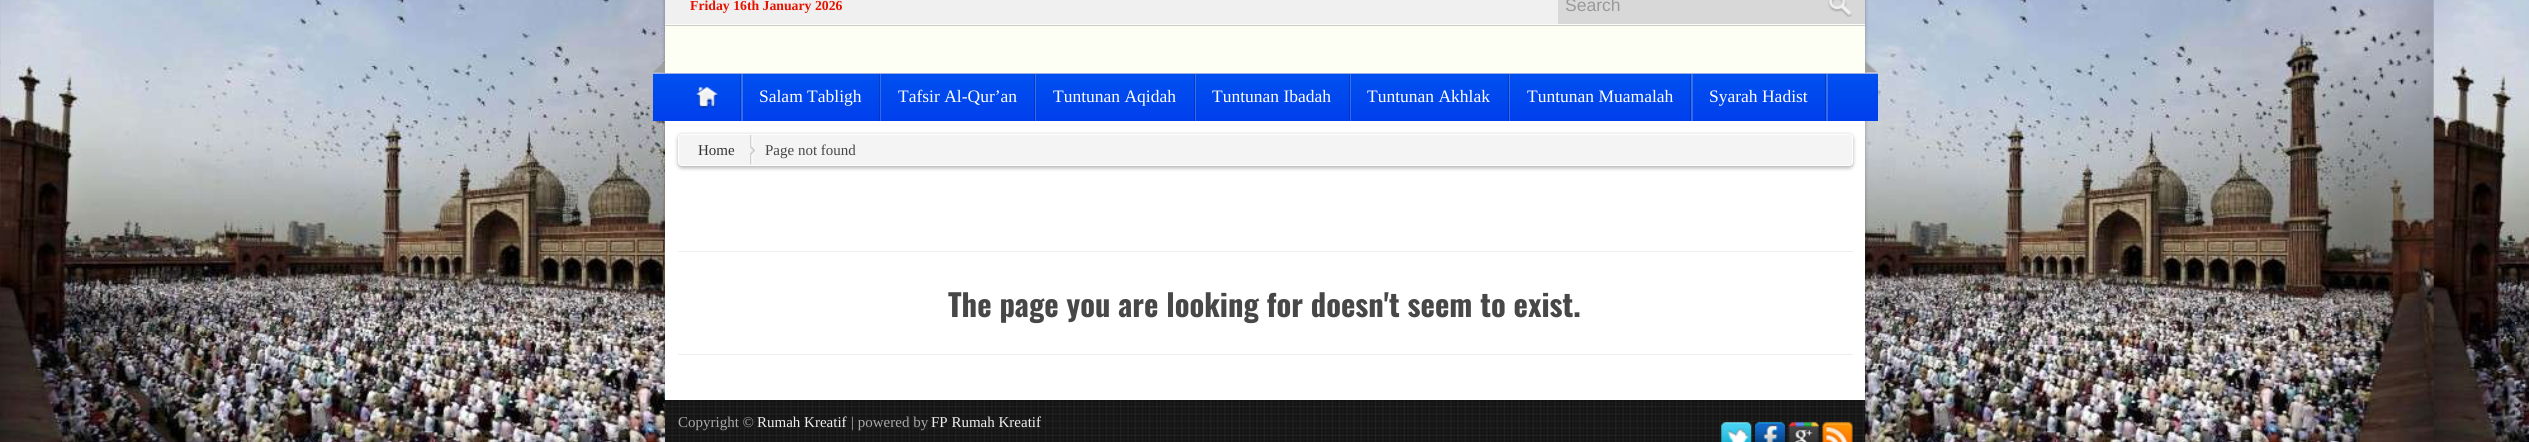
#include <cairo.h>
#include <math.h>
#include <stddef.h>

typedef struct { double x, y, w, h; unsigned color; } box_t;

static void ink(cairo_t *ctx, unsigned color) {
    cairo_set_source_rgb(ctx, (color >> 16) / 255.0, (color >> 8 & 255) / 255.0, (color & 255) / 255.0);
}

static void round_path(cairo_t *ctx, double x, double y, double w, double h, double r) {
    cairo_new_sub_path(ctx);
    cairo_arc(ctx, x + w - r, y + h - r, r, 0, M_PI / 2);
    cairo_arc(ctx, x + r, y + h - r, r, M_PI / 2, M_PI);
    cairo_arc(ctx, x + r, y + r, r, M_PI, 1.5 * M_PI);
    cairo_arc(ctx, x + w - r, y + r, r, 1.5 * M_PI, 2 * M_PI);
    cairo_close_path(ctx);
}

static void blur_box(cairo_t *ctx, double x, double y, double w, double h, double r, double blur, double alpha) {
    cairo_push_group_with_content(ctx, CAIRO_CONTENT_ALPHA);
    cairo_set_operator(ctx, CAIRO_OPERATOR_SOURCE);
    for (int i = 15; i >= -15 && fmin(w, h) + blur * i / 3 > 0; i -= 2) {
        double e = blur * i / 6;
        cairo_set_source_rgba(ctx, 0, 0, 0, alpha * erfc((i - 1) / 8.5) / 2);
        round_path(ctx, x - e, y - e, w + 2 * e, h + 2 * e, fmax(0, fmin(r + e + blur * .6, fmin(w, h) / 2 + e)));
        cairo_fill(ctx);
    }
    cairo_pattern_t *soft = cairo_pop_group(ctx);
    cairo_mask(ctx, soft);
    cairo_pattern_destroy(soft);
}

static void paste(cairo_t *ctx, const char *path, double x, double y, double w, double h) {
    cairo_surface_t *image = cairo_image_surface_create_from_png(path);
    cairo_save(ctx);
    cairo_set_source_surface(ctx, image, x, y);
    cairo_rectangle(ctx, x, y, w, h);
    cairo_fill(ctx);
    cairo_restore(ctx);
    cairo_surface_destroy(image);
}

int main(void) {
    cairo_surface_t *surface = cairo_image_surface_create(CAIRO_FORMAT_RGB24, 2529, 442);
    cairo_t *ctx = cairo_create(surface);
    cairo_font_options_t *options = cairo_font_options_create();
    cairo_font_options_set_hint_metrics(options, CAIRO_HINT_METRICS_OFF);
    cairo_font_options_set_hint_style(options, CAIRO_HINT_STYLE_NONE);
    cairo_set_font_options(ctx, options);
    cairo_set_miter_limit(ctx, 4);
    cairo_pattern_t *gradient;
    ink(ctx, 0xFFFFFF);
    cairo_paint(ctx);
    paste(ctx, "media/1.png", 0, 0, 2529, 442);
    ink(ctx, 0x000000);
    blur_box(ctx, 665, -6, 1200, 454, 0, 2, 0.3);
    {
        static const box_t items[] = {
            {665, 121, 1200, 279, 0xFFFFFF},
            {665, 26, 1200, 47, 0xFDFFF5},
            {665, 25, 1200, 1, 0xCACCC4},
            {665, 0, 893, 24, 0xF0F0F0},
            {665, 24, 1200, 1, 0xFCFCFC},
        };
        for (size_t i = 0; i < sizeof items / sizeof *items; i++) {
            ink(ctx, items[i].color);
            cairo_rectangle(ctx, items[i].x, items[i].y, items[i].w, items[i].h);
            cairo_fill(ctx);
        }
    }
    cairo_select_font_face(ctx, "Liberation Serif", CAIRO_FONT_SLANT_NORMAL, CAIRO_FONT_WEIGHT_BOLD);
    cairo_set_font_size(ctx, 13.75);
    ink(ctx, 0xE51400);
    cairo_move_to(ctx, 690, 10);
    cairo_show_text(ctx, "Friday 16th January 2026");
    ink(ctx, 0xD8D8D8);
    cairo_rectangle(ctx, 1558, 0, 307, 24);
    cairo_fill(ctx);
    cairo_select_font_face(ctx, "Liberation Sans", CAIRO_FONT_SLANT_NORMAL, CAIRO_FONT_WEIGHT_NORMAL);
    cairo_set_font_size(ctx, 17.5);
    ink(ctx, 0x999999);
    cairo_move_to(ctx, 1565, 11);
    cairo_show_text(ctx, "Search");
    paste(ctx, "media/2.png", 1828, 0, 24, 17);
    paste(ctx, "media/3.png", 652, 61, 13, 12);
    paste(ctx, "media/4.png", 1865, 61, 13, 12);
    gradient = cairo_pattern_create_linear(1265, 74, 1265, 121);
    cairo_pattern_add_color_stop_rgba(gradient, 0, 0, 0.314, 0.937, 1);
    cairo_pattern_add_color_stop_rgba(gradient, 1, 0, 0.247, 0.929, 1);
    cairo_set_source(ctx, gradient);
    cairo_pattern_destroy(gradient);
    cairo_rectangle(ctx, 653, 74, 1225, 47);
    cairo_fill(ctx);
    ink(ctx, 0x9EB0E5);
    cairo_rectangle(ctx, 653, 73, 1225, 1);
    cairo_fill(ctx);
    cairo_set_source_rgba(ctx, 1, 1, 1, 0.2);
    cairo_rectangle(ctx, 741, 74, 2, 47);
    cairo_fill(ctx);
    cairo_set_source_rgba(ctx, 0, 0, 0, 0.2);
    cairo_rectangle(ctx, 740, 74, 1, 47);
    cairo_fill(ctx);
    paste(ctx, "media/5.png", 696, 87, 22, 22);
    cairo_set_source_rgba(ctx, 1, 1, 1, 0.2);
    cairo_rectangle(ctx, 880, 74, 1, 47);
    cairo_fill(ctx);
    cairo_set_source_rgba(ctx, 0, 0, 0, 0.2);
    cairo_rectangle(ctx, 879, 74, 1, 47);
    cairo_fill(ctx);
    cairo_select_font_face(ctx, "Liberation Serif", CAIRO_FONT_SLANT_NORMAL, CAIRO_FONT_WEIGHT_NORMAL);
    ink(ctx, 0xFFFFFF);
    cairo_move_to(ctx, 759, 102);
    cairo_show_text(ctx, "Salam Tabligh");
    cairo_set_source_rgba(ctx, 1, 1, 1, 0.2);
    cairo_rectangle(ctx, 1035, 74, 1, 47);
    cairo_fill(ctx);
    cairo_set_source_rgba(ctx, 0, 0, 0, 0.2);
    cairo_rectangle(ctx, 1034, 74, 1, 47);
    cairo_fill(ctx);
    ink(ctx, 0xFFFFFF);
    cairo_move_to(ctx, 898, 102);
    cairo_show_text(ctx, "Tafsir Al-Qur’an");
    cairo_set_source_rgba(ctx, 1, 1, 1, 0.2);
    cairo_rectangle(ctx, 1195, 74, 1, 47);
    cairo_fill(ctx);
    cairo_set_source_rgba(ctx, 0, 0, 0, 0.2);
    cairo_rectangle(ctx, 1194, 74, 1, 47);
    cairo_fill(ctx);
    ink(ctx, 0xFFFFFF);
    cairo_move_to(ctx, 1053, 102);
    cairo_show_text(ctx, "Tuntunan Aqidah");
    cairo_set_source_rgba(ctx, 1, 1, 1, 0.2);
    cairo_rectangle(ctx, 1350, 74, 1, 47);
    cairo_fill(ctx);
    cairo_set_source_rgba(ctx, 0, 0, 0, 0.2);
    cairo_rectangle(ctx, 1349, 74, 1, 47);
    cairo_fill(ctx);
    ink(ctx, 0xFFFFFF);
    cairo_move_to(ctx, 1212, 102);
    cairo_show_text(ctx, "Tuntunan Ibadah");
    cairo_set_source_rgba(ctx, 1, 1, 1, 0.2);
    cairo_rectangle(ctx, 1509, 74, 1, 47);
    cairo_fill(ctx);
    cairo_set_source_rgba(ctx, 0, 0, 0, 0.2);
    cairo_rectangle(ctx, 1508, 74, 1, 47);
    cairo_fill(ctx);
    ink(ctx, 0xFFFFFF);
    cairo_move_to(ctx, 1367, 102);
    cairo_show_text(ctx, "Tuntunan Akhlak");
    cairo_set_source_rgba(ctx, 1, 1, 1, 0.2);
    cairo_rectangle(ctx, 1691, 74, 2, 47);
    cairo_fill(ctx);
    cairo_set_source_rgba(ctx, 0, 0, 0, 0.2);
    cairo_rectangle(ctx, 1690, 74, 1, 47);
    cairo_fill(ctx);
    ink(ctx, 0xFFFFFF);
    cairo_move_to(ctx, 1527, 102);
    cairo_show_text(ctx, "Tuntunan Muamalah");
    cairo_set_source_rgba(ctx, 1, 1, 1, 0.2);
    cairo_rectangle(ctx, 1826, 74, 2, 47);
    cairo_fill(ctx);
    cairo_set_source_rgba(ctx, 0, 0, 0, 0.2);
    cairo_rectangle(ctx, 1825, 74, 1, 47);
    cairo_fill(ctx);
    ink(ctx, 0xFFFFFF);
    cairo_move_to(ctx, 1709, 102);
    cairo_show_text(ctx, "Syarah Hadist");
    ink(ctx, 0x000000);
    blur_box(ctx, 678, 135, 1175, 33, 4, 2, 0.3);
    ink(ctx, 0xF4F4F4);
    round_path(ctx, 678.5, 134.5, 1174, 31, 3.5);
    cairo_fill_preserve(ctx);
    ink(ctx, 0xFFFFFF);
    cairo_set_line_width(ctx, 1);
    cairo_stroke(ctx);
    paste(ctx, "media/6.png", 750, 135, 5, 30);
    cairo_set_font_size(ctx, 15);
    ink(ctx, 0x333333);
    cairo_move_to(ctx, 698, 155);
    cairo_show_text(ctx, "Home");
    ink(ctx, 0x474747);
    cairo_move_to(ctx, 765, 155);
    cairo_show_text(ctx, "Page not found");
    ink(ctx, 0xEEEEEE);
    cairo_rectangle(ctx, 678, 251, 1175, 1);
    cairo_fill(ctx);
    cairo_select_font_face(ctx, "Oswald", CAIRO_FONT_SLANT_NORMAL, CAIRO_FONT_WEIGHT_BOLD);
    cairo_set_font_size(ctx, 30.6);
    ink(ctx, 0x474747);
    cairo_move_to(ctx, 948, 317);
    cairo_show_text(ctx, "The page you are looking for doesn't seem to exist.");
    ink(ctx, 0xEEEEEE);
    cairo_rectangle(ctx, 678, 354, 1175, 1);
    cairo_fill(ctx);
    ink(ctx, 0x111111);
    cairo_rectangle(ctx, 665, 400, 1200, 42);
    cairo_fill(ctx);
    paste(ctx, "media/7.png", 665, 400, 1200, 42);
    cairo_select_font_face(ctx, "Liberation Serif", CAIRO_FONT_SLANT_NORMAL, CAIRO_FONT_WEIGHT_NORMAL);
    cairo_set_font_size(ctx, 15);
    ink(ctx, 0xAAAAAA);
    cairo_move_to(ctx, 678, 427);
    cairo_show_text(ctx, "Copyright ©");
    ink(ctx, 0xEFEFEF);
    cairo_move_to(ctx, 757, 427);
    cairo_show_text(ctx, "Rumah Kreatif");
    ink(ctx, 0xAAAAAA);
    cairo_move_to(ctx, 851, 427);
    cairo_show_text(ctx, "| powered by");
    ink(ctx, 0xEFEFEF);
    cairo_move_to(ctx, 931, 427);
    cairo_show_text(ctx, "FP Rumah Kreatif");
    paste(ctx, "media/8.png", 1721, 422, 31, 20);
    paste(ctx, "media/9.png", 1755, 422, 30, 20);
    paste(ctx, "media/10.png", 1788, 422, 31, 20);
    paste(ctx, "media/11.png", 1822, 422, 31, 20);
    cairo_surface_write_to_png(surface, "image.png");
    cairo_font_options_destroy(options);
    cairo_destroy(ctx);
    cairo_surface_destroy(surface);
    return 0;
}
